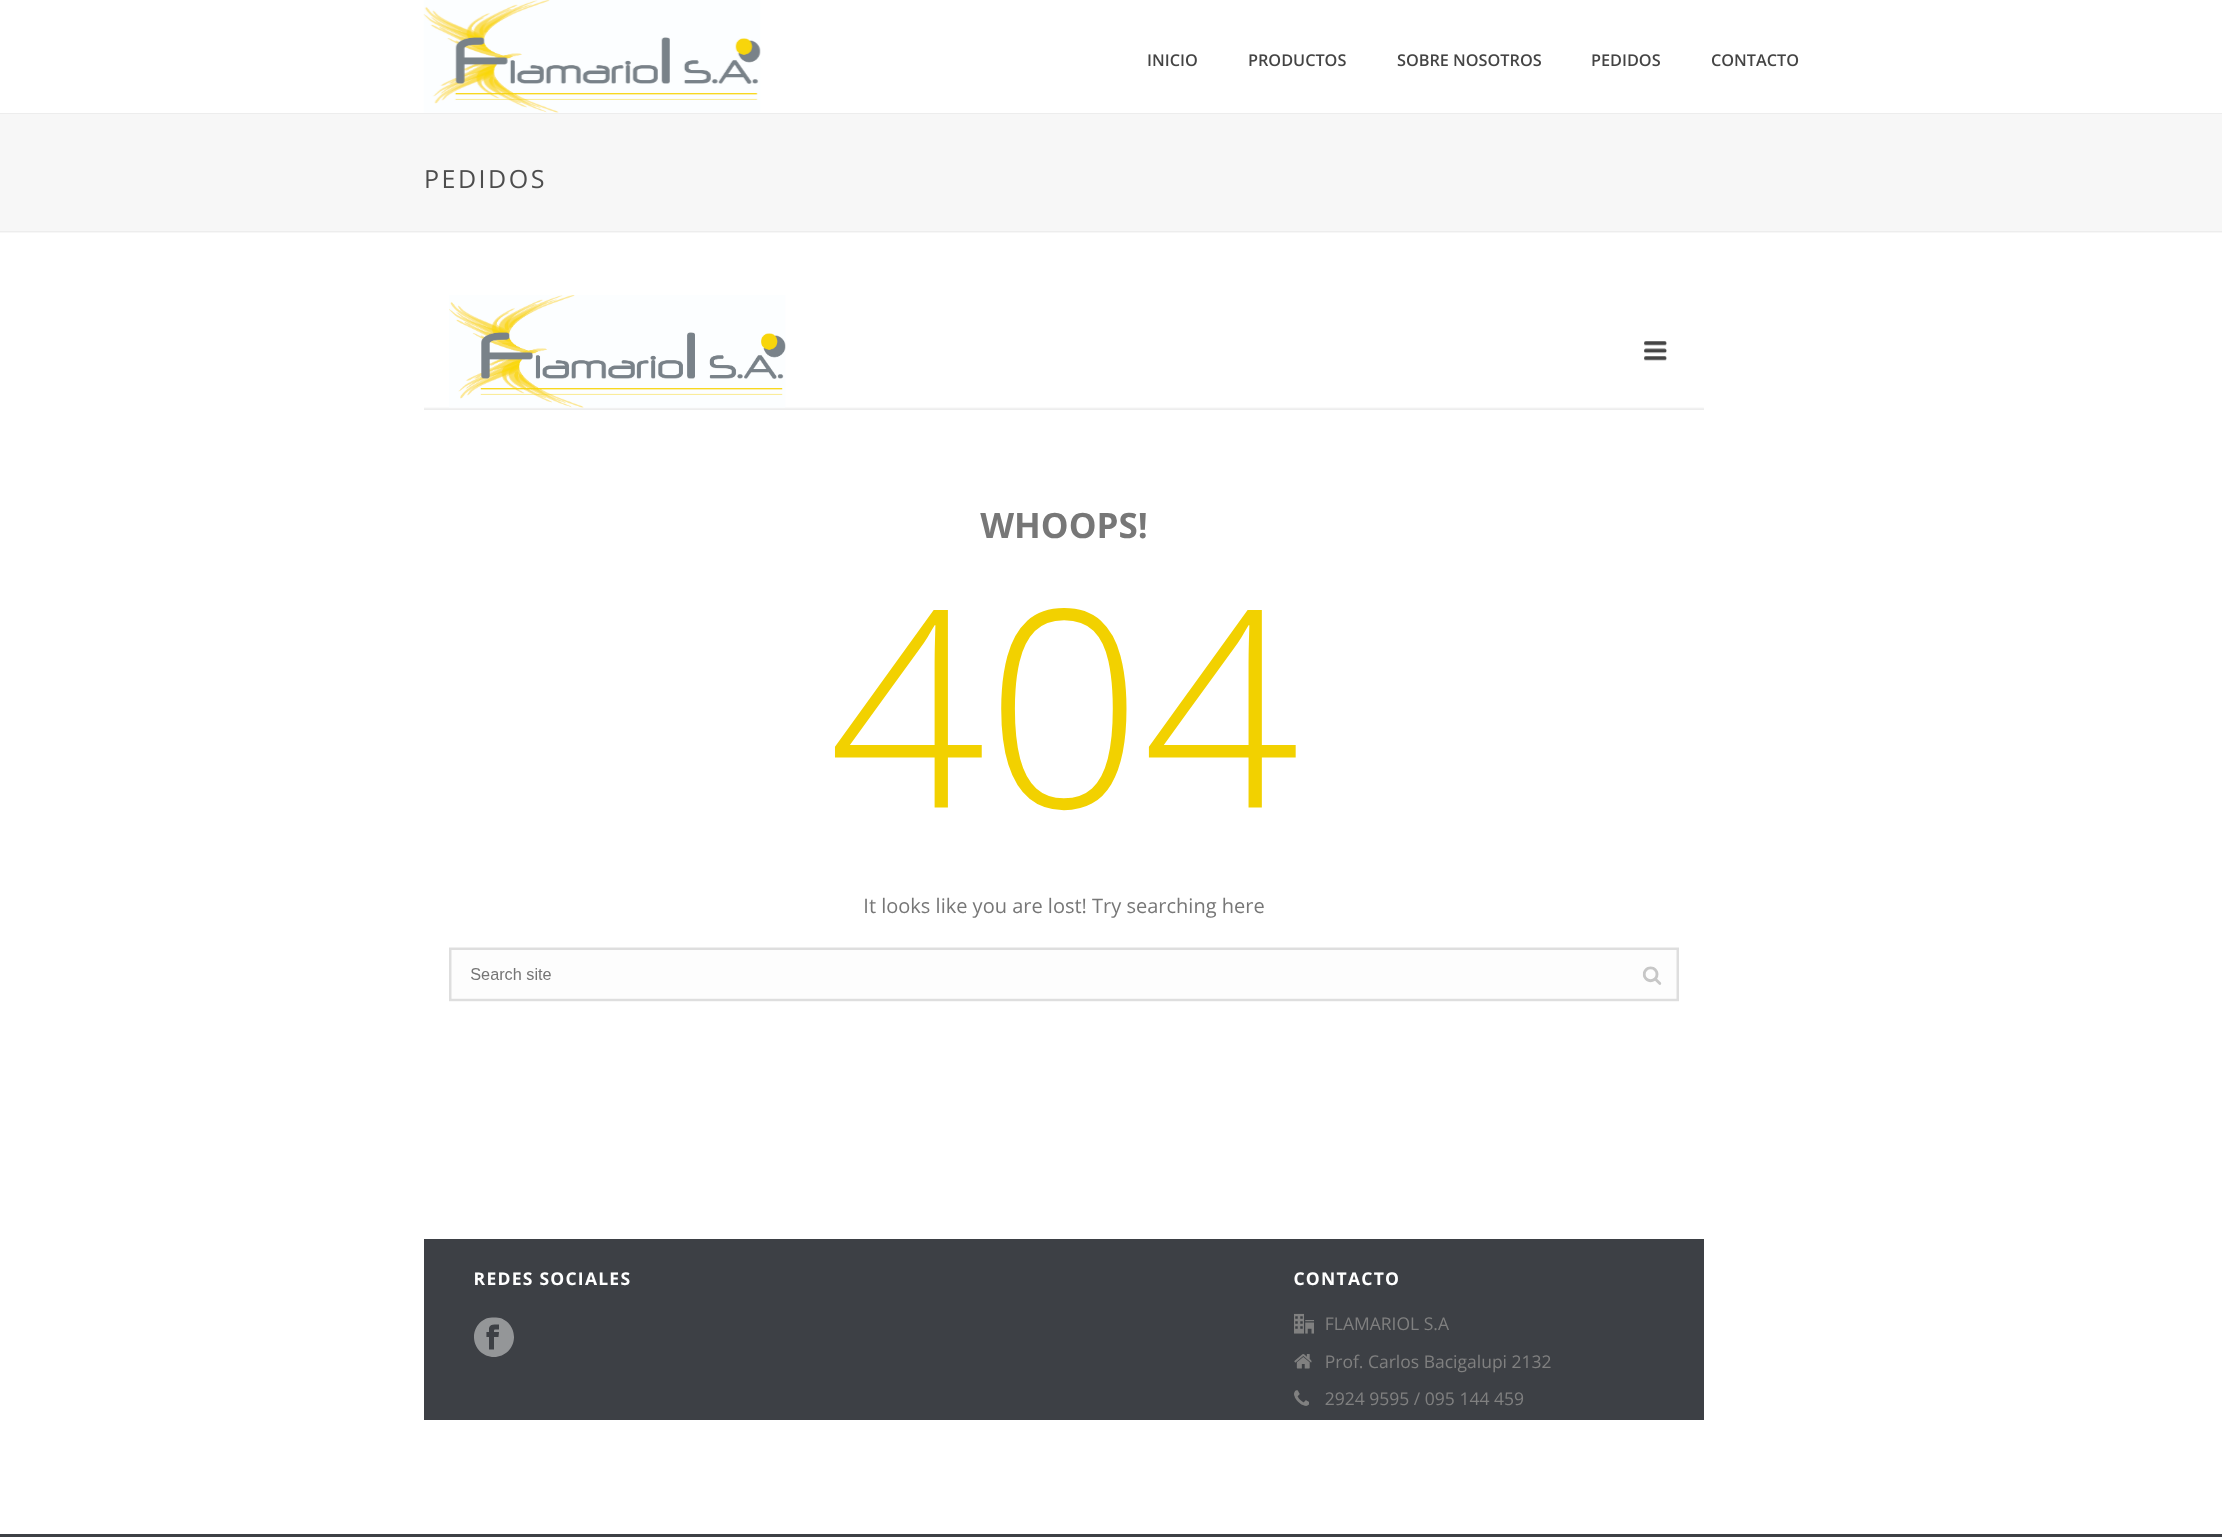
#include <cairo.h>
#include <math.h>
#include <stddef.h>

typedef struct { double x, y; const char *s; } line_t;
typedef struct { double x, y, w, h; unsigned color; } box_t;

static void ink(cairo_t *ctx, unsigned color) {
    cairo_set_source_rgb(ctx, (color >> 16) / 255.0, (color >> 8 & 255) / 255.0, (color & 255) / 255.0);
}

static void write_spaced(cairo_t *ctx, double x, double y, const char *s, double letter, double word) {
    cairo_move_to(ctx, x, y);
    while (*s) {
        char ch[5] = {0};
        int n = 0;
        do ch[n++] = *s++; while ((*s & 0xC0) == 0x80);
        cairo_show_text(ctx, ch);
        cairo_rel_move_to(ctx, letter + word * (*ch == ' '), 0);
    }
}

static void paste(cairo_t *ctx, const char *path, double x, double y, double w, double h) {
    cairo_surface_t *image = cairo_image_surface_create_from_png(path);
    cairo_save(ctx);
    cairo_set_source_surface(ctx, image, x, y);
    cairo_rectangle(ctx, x, y, w, h);
    cairo_fill(ctx);
    cairo_restore(ctx);
    cairo_surface_destroy(image);
}

int main(void) {
    cairo_surface_t *surface = cairo_image_surface_create(CAIRO_FORMAT_RGB24, 2222, 1537);
    cairo_t *ctx = cairo_create(surface);
    cairo_font_options_t *options = cairo_font_options_create();
    cairo_font_options_set_hint_metrics(options, CAIRO_HINT_METRICS_OFF);
    cairo_font_options_set_hint_style(options, CAIRO_HINT_STYLE_NONE);
    cairo_set_font_options(ctx, options);
    cairo_set_miter_limit(ctx, 4);
    ink(ctx, 0xFFFFFF);
    cairo_paint(ctx);
    {
        static const box_t items[] = {
            {0, 114, 2222, 119, 0xF7F7F7},
            {0, 231, 2222, 1, 0xEDEDED},
            {0, 113, 2222, 1, 0xEDEDED},
        };
        for (size_t i = 0; i < sizeof items / sizeof *items; i++) {
            ink(ctx, items[i].color);
            cairo_rectangle(ctx, items[i].x, items[i].y, items[i].w, items[i].h);
            cairo_fill(ctx);
        }
    }
    paste(ctx, "media/1.png", 423, 0, 338, 113);
    cairo_select_font_face(ctx, "Open Sans SemiBold", CAIRO_FONT_SLANT_NORMAL, CAIRO_FONT_WEIGHT_NORMAL);
    cairo_set_font_size(ctx, 16.25);
    ink(ctx, 0x444444);
    {
        static const line_t items[] = {
            {1147, 66, "INICIO"},
            {1248, 66, "PRODUCTOS"},
            {1397, 66, "SOBRE NOSOTROS"},
            {1591, 66, "PEDIDOS"},
            {1711, 66, "CONTACTO"},
        };
        for (size_t i = 0; i < sizeof items / sizeof *items; i++) {
            cairo_move_to(ctx, items[i].x, items[i].y);
            cairo_show_text(ctx, items[i].s);
        }
    }
    cairo_select_font_face(ctx, "Open Sans", CAIRO_FONT_SLANT_NORMAL, CAIRO_FONT_WEIGHT_NORMAL);
    cairo_set_font_size(ctx, 25);
    ink(ctx, 0x4D4D4D);
    write_spaced(ctx, 424, 188, "PEDIDOS", 2.5, 0);
    paste(ctx, "media/2.png", 424, 295, 1280, 1125);
    ink(ctx, 0x3D4045);
    cairo_rectangle(ctx, 0, 1534, 2222, 3);
    cairo_fill(ctx);
    cairo_surface_write_to_png(surface, "image.png");
    cairo_font_options_destroy(options);
    cairo_destroy(ctx);
    cairo_surface_destroy(surface);
    return 0;
}
